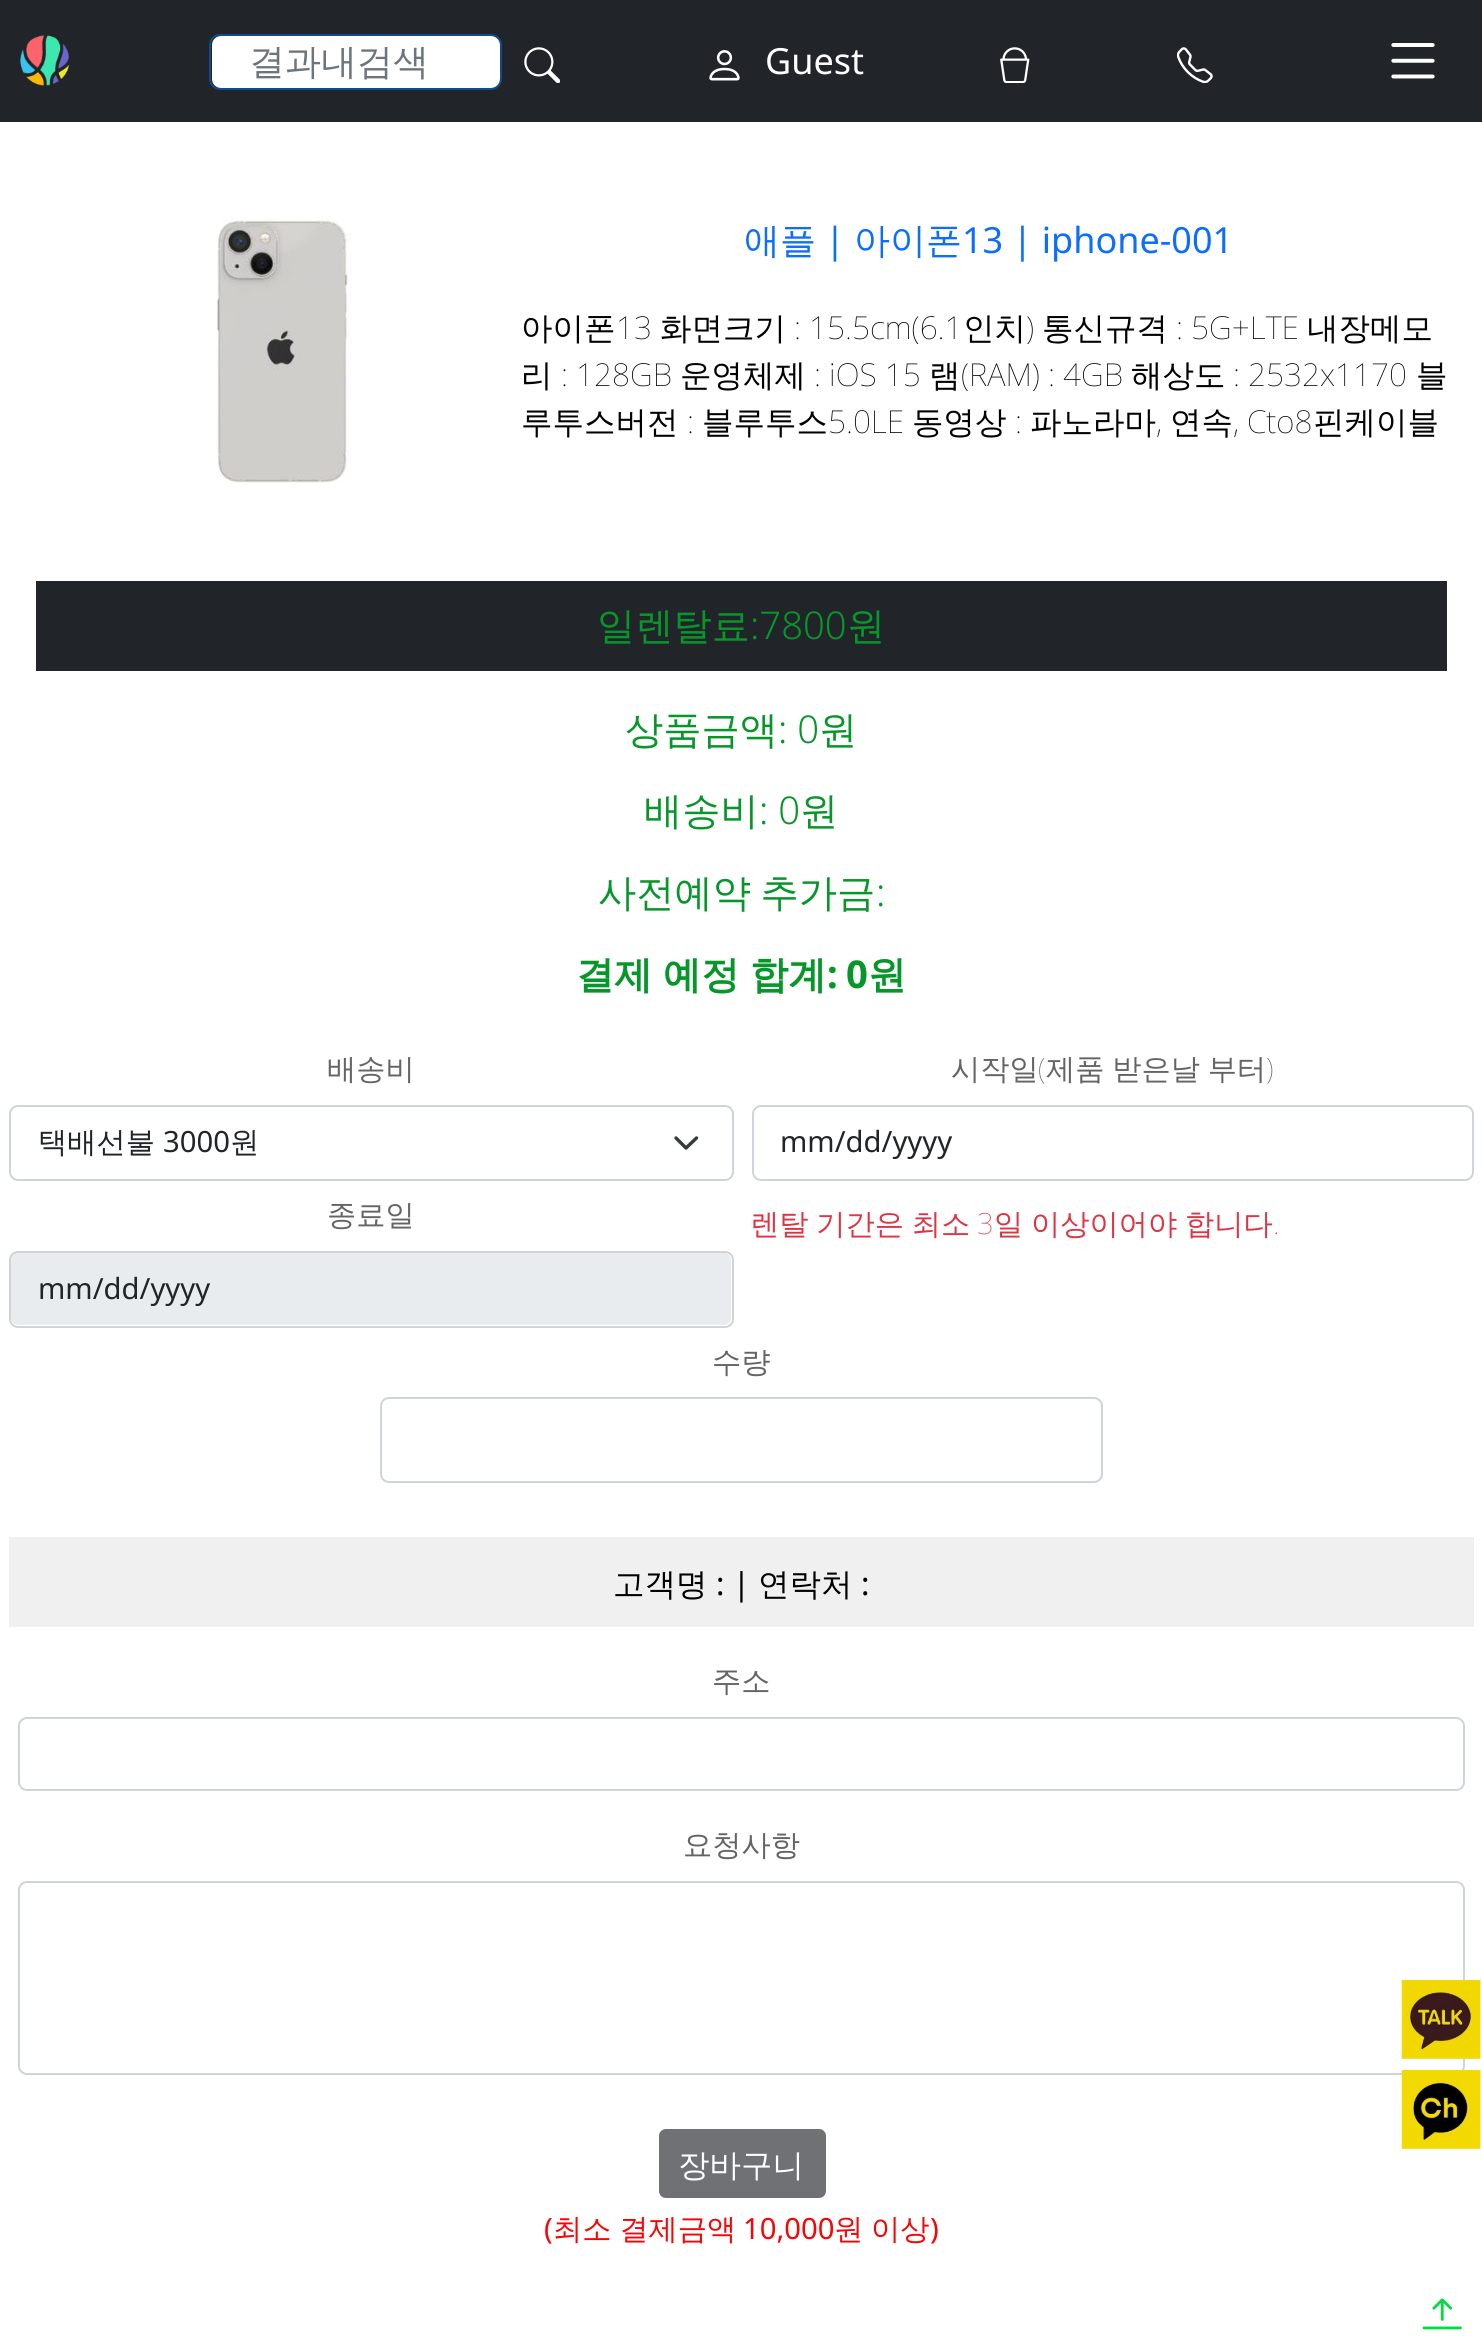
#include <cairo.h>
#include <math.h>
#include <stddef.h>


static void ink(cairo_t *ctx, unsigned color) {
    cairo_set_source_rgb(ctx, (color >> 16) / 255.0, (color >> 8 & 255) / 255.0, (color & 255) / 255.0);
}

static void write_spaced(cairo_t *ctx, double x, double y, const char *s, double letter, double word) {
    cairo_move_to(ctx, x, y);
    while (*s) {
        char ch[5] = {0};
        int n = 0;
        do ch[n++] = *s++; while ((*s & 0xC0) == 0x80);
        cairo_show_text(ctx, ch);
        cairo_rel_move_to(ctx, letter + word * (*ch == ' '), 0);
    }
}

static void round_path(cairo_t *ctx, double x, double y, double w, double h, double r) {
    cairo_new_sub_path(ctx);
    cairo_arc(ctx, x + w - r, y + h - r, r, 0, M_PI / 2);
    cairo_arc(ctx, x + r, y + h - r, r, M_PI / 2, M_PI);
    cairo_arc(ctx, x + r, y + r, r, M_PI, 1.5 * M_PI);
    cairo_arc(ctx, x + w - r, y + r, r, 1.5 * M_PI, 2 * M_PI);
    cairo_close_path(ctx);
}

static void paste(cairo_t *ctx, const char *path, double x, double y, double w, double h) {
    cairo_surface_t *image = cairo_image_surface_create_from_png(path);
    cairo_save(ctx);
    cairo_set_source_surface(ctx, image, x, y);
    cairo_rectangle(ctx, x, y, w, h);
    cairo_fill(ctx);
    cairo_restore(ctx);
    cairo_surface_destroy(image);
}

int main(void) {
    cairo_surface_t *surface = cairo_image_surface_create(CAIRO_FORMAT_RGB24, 1482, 2350);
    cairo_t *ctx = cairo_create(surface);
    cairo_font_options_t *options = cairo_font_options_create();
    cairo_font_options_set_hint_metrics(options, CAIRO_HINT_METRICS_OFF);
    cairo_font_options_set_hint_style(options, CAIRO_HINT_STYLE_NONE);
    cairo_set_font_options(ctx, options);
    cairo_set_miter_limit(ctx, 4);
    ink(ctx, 0xFFFFFF);
    cairo_paint(ctx);
    ink(ctx, 0x212529);
    cairo_rectangle(ctx, 0, 0, 1482, 122);
    cairo_fill(ctx);
    paste(ctx, "media/1.png", 20, 35, 49, 51);
    ink(ctx, 0xFFFFFF);
    round_path(ctx, 212, 36, 288, 52, 9);
    cairo_fill(ctx);
    round_path(ctx, 210, 35, 291, 54, 10);
    cairo_set_source_rgba(ctx, 0, 0.482, 1, 0.47);
    cairo_stroke(ctx);
    cairo_select_font_face(ctx, "WenQuanYi Zen Hei Medium", CAIRO_FONT_SLANT_NORMAL, CAIRO_FONT_WEIGHT_NORMAL);
    cairo_set_font_size(ctx, 36);
    ink(ctx, 0x6C757D);
    cairo_move_to(ctx, 249, 74);
    cairo_show_text(ctx, "결과내검색");
    paste(ctx, "media/2.png", 524, 47, 36, 36);
    paste(ctx, "media/3.png", 709, 50, 31, 31);
    cairo_select_font_face(ctx, "Noto Sans", CAIRO_FONT_SLANT_NORMAL, CAIRO_FONT_WEIGHT_NORMAL);
    ink(ctx, 0xFFFFFF);
    cairo_move_to(ctx, 765, 74);
    cairo_show_text(ctx, "Guest");
    paste(ctx, "media/4.png", 1000, 47, 30, 36);
    paste(ctx, "media/5.png", 1177, 47, 36, 36);
    paste(ctx, "media/6.png", 1391, 43, 44, 36);
    paste(ctx, "media/7.png", 216, 218, 135, 266);
    cairo_select_font_face(ctx, "WenQuanYi Zen Hei Medium", CAIRO_FONT_SLANT_NORMAL, CAIRO_FONT_WEIGHT_NORMAL);
    ink(ctx, 0x0D6EFD);
    cairo_move_to(ctx, 744, 253);
    cairo_show_text(ctx, "애플");
    cairo_select_font_face(ctx, "Noto Sans", CAIRO_FONT_SLANT_NORMAL, CAIRO_FONT_WEIGHT_NORMAL);
    cairo_move_to(ctx, 825, 253);
    cairo_show_text(ctx, "|");
    cairo_select_font_face(ctx, "WenQuanYi Zen Hei Medium", CAIRO_FONT_SLANT_NORMAL, CAIRO_FONT_WEIGHT_NORMAL);
    cairo_move_to(ctx, 854, 253);
    cairo_show_text(ctx, "아이폰");
    cairo_select_font_face(ctx, "Noto Sans", CAIRO_FONT_SLANT_NORMAL, CAIRO_FONT_WEIGHT_NORMAL);
    cairo_move_to(ctx, 962, 253);
    cairo_show_text(ctx, "13 | iphone-001");
    cairo_select_font_face(ctx, "WenQuanYi Zen Hei Medium", CAIRO_FONT_SLANT_NORMAL, CAIRO_FONT_WEIGHT_NORMAL);
    cairo_set_font_size(ctx, 31.5);
    ink(ctx, 0x000000);
    cairo_move_to(ctx, 521, 339);
    cairo_show_text(ctx, "아이폰");
    cairo_select_font_face(ctx, "Noto Sans Thin", CAIRO_FONT_SLANT_NORMAL, CAIRO_FONT_WEIGHT_NORMAL);
    cairo_move_to(ctx, 616, 339);
    cairo_show_text(ctx, "13");
    cairo_select_font_face(ctx, "WenQuanYi Zen Hei Medium", CAIRO_FONT_SLANT_NORMAL, CAIRO_FONT_WEIGHT_NORMAL);
    cairo_move_to(ctx, 660, 339);
    cairo_show_text(ctx, "화면크기");
    cairo_select_font_face(ctx, "Noto Sans Thin", CAIRO_FONT_SLANT_NORMAL, CAIRO_FONT_WEIGHT_NORMAL);
    cairo_move_to(ctx, 794, 339);
    cairo_show_text(ctx, ": 15.5cm(6.1");
    cairo_select_font_face(ctx, "WenQuanYi Zen Hei Medium", CAIRO_FONT_SLANT_NORMAL, CAIRO_FONT_WEIGHT_NORMAL);
    cairo_move_to(ctx, 963, 339);
    cairo_show_text(ctx, "인치");
    cairo_select_font_face(ctx, "Noto Sans Thin", CAIRO_FONT_SLANT_NORMAL, CAIRO_FONT_WEIGHT_NORMAL);
    cairo_move_to(ctx, 1026, 339);
    cairo_show_text(ctx, ")");
    cairo_select_font_face(ctx, "WenQuanYi Zen Hei Medium", CAIRO_FONT_SLANT_NORMAL, CAIRO_FONT_WEIGHT_NORMAL);
    cairo_move_to(ctx, 1042, 339);
    cairo_show_text(ctx, "통신규격");
    cairo_select_font_face(ctx, "Noto Sans Thin", CAIRO_FONT_SLANT_NORMAL, CAIRO_FONT_WEIGHT_NORMAL);
    cairo_move_to(ctx, 1176, 339);
    cairo_show_text(ctx, ": 5G+LTE");
    cairo_select_font_face(ctx, "WenQuanYi Zen Hei Medium", CAIRO_FONT_SLANT_NORMAL, CAIRO_FONT_WEIGHT_NORMAL);
    cairo_move_to(ctx, 1307, 339);
    cairo_show_text(ctx, "내장메모");
    cairo_move_to(ctx, 521, 386);
    cairo_show_text(ctx, "리");
    cairo_select_font_face(ctx, "Noto Sans Thin", CAIRO_FONT_SLANT_NORMAL, CAIRO_FONT_WEIGHT_NORMAL);
    cairo_move_to(ctx, 561, 386);
    cairo_show_text(ctx, ": 128GB");
    cairo_select_font_face(ctx, "WenQuanYi Zen Hei Medium", CAIRO_FONT_SLANT_NORMAL, CAIRO_FONT_WEIGHT_NORMAL);
    cairo_move_to(ctx, 680, 386);
    cairo_show_text(ctx, "운영체제");
    cairo_select_font_face(ctx, "Noto Sans Thin", CAIRO_FONT_SLANT_NORMAL, CAIRO_FONT_WEIGHT_NORMAL);
    cairo_move_to(ctx, 814, 386);
    cairo_show_text(ctx, ": iOS 15");
    cairo_select_font_face(ctx, "WenQuanYi Zen Hei Medium", CAIRO_FONT_SLANT_NORMAL, CAIRO_FONT_WEIGHT_NORMAL);
    cairo_move_to(ctx, 929, 386);
    cairo_show_text(ctx, "램");
    cairo_select_font_face(ctx, "Noto Sans Thin", CAIRO_FONT_SLANT_NORMAL, CAIRO_FONT_WEIGHT_NORMAL);
    cairo_move_to(ctx, 961, 386);
    cairo_show_text(ctx, "(RAM) : 4GB");
    cairo_select_font_face(ctx, "WenQuanYi Zen Hei Medium", CAIRO_FONT_SLANT_NORMAL, CAIRO_FONT_WEIGHT_NORMAL);
    cairo_move_to(ctx, 1131, 386);
    cairo_show_text(ctx, "해상도");
    cairo_select_font_face(ctx, "Noto Sans Thin", CAIRO_FONT_SLANT_NORMAL, CAIRO_FONT_WEIGHT_NORMAL);
    cairo_move_to(ctx, 1233, 386);
    cairo_show_text(ctx, ": 2532x1170");
    cairo_select_font_face(ctx, "WenQuanYi Zen Hei Medium", CAIRO_FONT_SLANT_NORMAL, CAIRO_FONT_WEIGHT_NORMAL);
    cairo_move_to(ctx, 1416, 386);
    cairo_show_text(ctx, "블");
    cairo_move_to(ctx, 521, 433);
    cairo_show_text(ctx, "루투스버전");
    cairo_select_font_face(ctx, "Noto Sans Thin", CAIRO_FONT_SLANT_NORMAL, CAIRO_FONT_WEIGHT_NORMAL);
    cairo_move_to(ctx, 687, 433);
    cairo_show_text(ctx, ":");
    cairo_select_font_face(ctx, "WenQuanYi Zen Hei Medium", CAIRO_FONT_SLANT_NORMAL, CAIRO_FONT_WEIGHT_NORMAL);
    cairo_move_to(ctx, 702, 433);
    cairo_show_text(ctx, "블루투스");
    cairo_select_font_face(ctx, "Noto Sans Thin", CAIRO_FONT_SLANT_NORMAL, CAIRO_FONT_WEIGHT_NORMAL);
    cairo_move_to(ctx, 828, 433);
    cairo_show_text(ctx, "5.0LE");
    cairo_select_font_face(ctx, "WenQuanYi Zen Hei Medium", CAIRO_FONT_SLANT_NORMAL, CAIRO_FONT_WEIGHT_NORMAL);
    cairo_move_to(ctx, 912, 433);
    cairo_show_text(ctx, "동영상");
    cairo_select_font_face(ctx, "Noto Sans Thin", CAIRO_FONT_SLANT_NORMAL, CAIRO_FONT_WEIGHT_NORMAL);
    cairo_move_to(ctx, 1015, 433);
    cairo_show_text(ctx, ":");
    cairo_select_font_face(ctx, "WenQuanYi Zen Hei Medium", CAIRO_FONT_SLANT_NORMAL, CAIRO_FONT_WEIGHT_NORMAL);
    cairo_move_to(ctx, 1030, 433);
    cairo_show_text(ctx, "파노라마");
    cairo_select_font_face(ctx, "Noto Sans Thin", CAIRO_FONT_SLANT_NORMAL, CAIRO_FONT_WEIGHT_NORMAL);
    cairo_move_to(ctx, 1156, 433);
    cairo_show_text(ctx, ",");
    cairo_select_font_face(ctx, "WenQuanYi Zen Hei Medium", CAIRO_FONT_SLANT_NORMAL, CAIRO_FONT_WEIGHT_NORMAL);
    cairo_move_to(ctx, 1170, 433);
    cairo_show_text(ctx, "연속");
    cairo_select_font_face(ctx, "Noto Sans Thin", CAIRO_FONT_SLANT_NORMAL, CAIRO_FONT_WEIGHT_NORMAL);
    cairo_move_to(ctx, 1233, 433);
    cairo_show_text(ctx, ", Cto8");
    cairo_select_font_face(ctx, "WenQuanYi Zen Hei Medium", CAIRO_FONT_SLANT_NORMAL, CAIRO_FONT_WEIGHT_NORMAL);
    cairo_move_to(ctx, 1313, 433);
    cairo_show_text(ctx, "핀케이블");
    ink(ctx, 0x212529);
    cairo_rectangle(ctx, 36, 581, 1411, 90);
    cairo_fill(ctx);
    cairo_set_font_size(ctx, 38.25);
    ink(ctx, 0x079629);
    cairo_move_to(ctx, 597, 639);
    cairo_show_text(ctx, "일렌탈료");
    cairo_select_font_face(ctx, "Noto Sans Light", CAIRO_FONT_SLANT_NORMAL, CAIRO_FONT_WEIGHT_NORMAL);
    cairo_move_to(ctx, 750, 639);
    cairo_show_text(ctx, ":7800");
    cairo_select_font_face(ctx, "WenQuanYi Zen Hei Medium", CAIRO_FONT_SLANT_NORMAL, CAIRO_FONT_WEIGHT_NORMAL);
    cairo_move_to(ctx, 847, 639);
    cairo_show_text(ctx, "원");
    cairo_move_to(ctx, 625, 743);
    cairo_show_text(ctx, "상품금액");
    cairo_select_font_face(ctx, "Noto Sans Light", CAIRO_FONT_SLANT_NORMAL, CAIRO_FONT_WEIGHT_NORMAL);
    cairo_move_to(ctx, 778, 743);
    cairo_show_text(ctx, ": 0");
    cairo_select_font_face(ctx, "WenQuanYi Zen Hei Medium", CAIRO_FONT_SLANT_NORMAL, CAIRO_FONT_WEIGHT_NORMAL);
    cairo_move_to(ctx, 819, 743);
    cairo_show_text(ctx, "원");
    cairo_move_to(ctx, 644, 824);
    cairo_show_text(ctx, "배송비");
    cairo_select_font_face(ctx, "Noto Sans Light", CAIRO_FONT_SLANT_NORMAL, CAIRO_FONT_WEIGHT_NORMAL);
    cairo_move_to(ctx, 759, 824);
    cairo_show_text(ctx, ": 0");
    cairo_select_font_face(ctx, "WenQuanYi Zen Hei Medium", CAIRO_FONT_SLANT_NORMAL, CAIRO_FONT_WEIGHT_NORMAL);
    cairo_move_to(ctx, 800, 824);
    cairo_show_text(ctx, "원");
    write_spaced(ctx, 598, 906, "사전예약 추가금", 0, -2);
    cairo_select_font_face(ctx, "Noto Sans Light", CAIRO_FONT_SLANT_NORMAL, CAIRO_FONT_WEIGHT_NORMAL);
    cairo_move_to(ctx, 876, 906);
    cairo_show_text(ctx, ":");
    cairo_select_font_face(ctx, "WenQuanYi Zen Hei", CAIRO_FONT_SLANT_NORMAL, CAIRO_FONT_WEIGHT_BOLD);
    write_spaced(ctx, 576, 988, "결제 예정 합계", 0, -1);
    cairo_select_font_face(ctx, "Noto Sans", CAIRO_FONT_SLANT_NORMAL, CAIRO_FONT_WEIGHT_BOLD);
    cairo_move_to(ctx, 827, 988);
    cairo_show_text(ctx, ":");
    cairo_move_to(ctx, 846, 988);
    cairo_show_text(ctx, "0");
    cairo_select_font_face(ctx, "WenQuanYi Zen Hei", CAIRO_FONT_SLANT_NORMAL, CAIRO_FONT_WEIGHT_BOLD);
    cairo_move_to(ctx, 868, 988);
    cairo_show_text(ctx, "원");
    cairo_select_font_face(ctx, "WenQuanYi Zen Hei Medium", CAIRO_FONT_SLANT_NORMAL, CAIRO_FONT_WEIGHT_NORMAL);
    cairo_set_font_size(ctx, 29.25);
    ink(ctx, 0x656464);
    cairo_move_to(ctx, 327, 1079);
    cairo_show_text(ctx, "배송비");
    cairo_new_path(ctx);
    cairo_move_to(ctx, 676, 1138);
    cairo_line_to(ctx, 686, 1148);
    cairo_line_to(ctx, 696.5, 1138);
    ink(ctx, 0x343A40);
    cairo_set_line_width(ctx, 3.4);
    cairo_set_line_cap(ctx, CAIRO_LINE_CAP_ROUND);
    cairo_set_line_join(ctx, CAIRO_LINE_JOIN_ROUND);
    cairo_stroke(ctx);
    round_path(ctx, 10, 1106, 723, 74, 8);
    ink(ctx, 0xCED4DA);
    cairo_set_line_width(ctx, 2);
    cairo_set_line_cap(ctx, CAIRO_LINE_CAP_BUTT);
    cairo_set_line_join(ctx, CAIRO_LINE_JOIN_MITER);
    cairo_stroke(ctx);
    ink(ctx, 0x212529);
    cairo_move_to(ctx, 38, 1152);
    cairo_show_text(ctx, "택배선불");
    cairo_select_font_face(ctx, "Noto Sans", CAIRO_FONT_SLANT_NORMAL, CAIRO_FONT_WEIGHT_NORMAL);
    cairo_move_to(ctx, 163, 1152);
    cairo_show_text(ctx, "3000");
    cairo_select_font_face(ctx, "WenQuanYi Zen Hei Medium", CAIRO_FONT_SLANT_NORMAL, CAIRO_FONT_WEIGHT_NORMAL);
    cairo_move_to(ctx, 230, 1152);
    cairo_show_text(ctx, "원");
    ink(ctx, 0x656464);
    cairo_move_to(ctx, 951, 1079);
    cairo_show_text(ctx, "시작일");
    cairo_select_font_face(ctx, "Noto Sans Thin", CAIRO_FONT_SLANT_NORMAL, CAIRO_FONT_WEIGHT_NORMAL);
    cairo_move_to(ctx, 1038, 1079);
    cairo_show_text(ctx, "(");
    cairo_select_font_face(ctx, "WenQuanYi Zen Hei Medium", CAIRO_FONT_SLANT_NORMAL, CAIRO_FONT_WEIGHT_NORMAL);
    write_spaced(ctx, 1046, 1079, "제품 받은날 부터", 0, -1);
    cairo_select_font_face(ctx, "Noto Sans Thin", CAIRO_FONT_SLANT_NORMAL, CAIRO_FONT_WEIGHT_NORMAL);
    cairo_move_to(ctx, 1266, 1079);
    cairo_show_text(ctx, ")");
    round_path(ctx, 753, 1106, 720, 74, 8);
    ink(ctx, 0xCED4DA);
    cairo_stroke(ctx);
    cairo_select_font_face(ctx, "Noto Sans", CAIRO_FONT_SLANT_NORMAL, CAIRO_FONT_WEIGHT_NORMAL);
    ink(ctx, 0x212529);
    cairo_move_to(ctx, 780, 1152);
    cairo_show_text(ctx, "mm/dd/yyyy");
    cairo_select_font_face(ctx, "WenQuanYi Zen Hei Medium", CAIRO_FONT_SLANT_NORMAL, CAIRO_FONT_WEIGHT_NORMAL);
    ink(ctx, 0x656464);
    cairo_move_to(ctx, 327, 1225);
    cairo_show_text(ctx, "종료일");
    ink(ctx, 0xE9ECEF);
    round_path(ctx, 11, 1253, 720, 72, 7);
    cairo_fill(ctx);
    round_path(ctx, 10, 1252, 723, 75, 8);
    ink(ctx, 0xCED4DA);
    cairo_stroke(ctx);
    cairo_select_font_face(ctx, "Noto Sans", CAIRO_FONT_SLANT_NORMAL, CAIRO_FONT_WEIGHT_NORMAL);
    ink(ctx, 0x212529);
    cairo_move_to(ctx, 38, 1299);
    cairo_show_text(ctx, "mm/dd/yyyy");
    cairo_select_font_face(ctx, "WenQuanYi Zen Hei Medium", CAIRO_FONT_SLANT_NORMAL, CAIRO_FONT_WEIGHT_NORMAL);
    ink(ctx, 0xDC3545);
    write_spaced(ctx, 750, 1234, "렌탈 기간은 최소", 0, -1);
    cairo_select_font_face(ctx, "Noto Sans Thin", CAIRO_FONT_SLANT_NORMAL, CAIRO_FONT_WEIGHT_NORMAL);
    cairo_move_to(ctx, 977, 1234);
    cairo_show_text(ctx, "3");
    cairo_select_font_face(ctx, "WenQuanYi Zen Hei Medium", CAIRO_FONT_SLANT_NORMAL, CAIRO_FONT_WEIGHT_NORMAL);
    write_spaced(ctx, 994, 1234, "일 이상이어야 합니다", 0, -1);
    cairo_select_font_face(ctx, "Noto Sans Thin", CAIRO_FONT_SLANT_NORMAL, CAIRO_FONT_WEIGHT_NORMAL);
    cairo_move_to(ctx, 1273, 1234);
    cairo_show_text(ctx, ".");
    cairo_select_font_face(ctx, "WenQuanYi Zen Hei Medium", CAIRO_FONT_SLANT_NORMAL, CAIRO_FONT_WEIGHT_NORMAL);
    ink(ctx, 0x656464);
    cairo_move_to(ctx, 712, 1372);
    cairo_show_text(ctx, "수량");
    round_path(ctx, 381, 1398, 721, 84, 8);
    ink(ctx, 0xCED4DA);
    cairo_stroke(ctx);
    ink(ctx, 0xF0F0F1);
    cairo_rectangle(ctx, 9, 1537, 1465, 90);
    cairo_fill(ctx);
    cairo_set_font_size(ctx, 31.5);
    ink(ctx, 0x000000);
    cairo_move_to(ctx, 613, 1595);
    cairo_show_text(ctx, "고객명");
    cairo_select_font_face(ctx, "Noto Sans", CAIRO_FONT_SLANT_NORMAL, CAIRO_FONT_WEIGHT_NORMAL);
    cairo_move_to(ctx, 716, 1595);
    cairo_show_text(ctx, ": |");
    cairo_select_font_face(ctx, "WenQuanYi Zen Hei Medium", CAIRO_FONT_SLANT_NORMAL, CAIRO_FONT_WEIGHT_NORMAL);
    cairo_move_to(ctx, 758, 1595);
    cairo_show_text(ctx, "연락처");
    cairo_select_font_face(ctx, "Noto Sans", CAIRO_FONT_SLANT_NORMAL, CAIRO_FONT_WEIGHT_NORMAL);
    cairo_move_to(ctx, 861, 1595);
    cairo_show_text(ctx, ":");
    cairo_select_font_face(ctx, "WenQuanYi Zen Hei Medium", CAIRO_FONT_SLANT_NORMAL, CAIRO_FONT_WEIGHT_NORMAL);
    cairo_set_font_size(ctx, 29.25);
    ink(ctx, 0x656464);
    cairo_move_to(ctx, 712, 1691);
    cairo_show_text(ctx, "주소");
    round_path(ctx, 19, 1718, 1445, 72, 8);
    ink(ctx, 0xCED4DA);
    cairo_stroke(ctx);
    ink(ctx, 0x656464);
    cairo_move_to(ctx, 683, 1855);
    cairo_show_text(ctx, "요청사항");
    round_path(ctx, 19, 1882, 1445, 192, 8);
    ink(ctx, 0xCED4DA);
    cairo_stroke(ctx);
    ink(ctx, 0x6F7174);
    round_path(ctx, 659, 2129, 167, 69, 7);
    cairo_fill(ctx);
    cairo_set_font_size(ctx, 31.5);
    ink(ctx, 0xFFFFFF);
    cairo_move_to(ctx, 678, 2176);
    cairo_show_text(ctx, "장바구니");
    cairo_select_font_face(ctx, "Noto Sans", CAIRO_FONT_SLANT_NORMAL, CAIRO_FONT_WEIGHT_NORMAL);
    cairo_set_font_size(ctx, 29.25);
    ink(ctx, 0xF50505);
    cairo_move_to(ctx, 544, 2239);
    cairo_show_text(ctx, "(");
    cairo_select_font_face(ctx, "WenQuanYi Zen Hei Medium", CAIRO_FONT_SLANT_NORMAL, CAIRO_FONT_WEIGHT_NORMAL);
    write_spaced(ctx, 553, 2239, "최소 결제금액", 0, -1);
    cairo_select_font_face(ctx, "Noto Sans", CAIRO_FONT_SLANT_NORMAL, CAIRO_FONT_WEIGHT_NORMAL);
    cairo_move_to(ctx, 743, 2239);
    cairo_show_text(ctx, "10,000");
    cairo_select_font_face(ctx, "WenQuanYi Zen Hei Medium", CAIRO_FONT_SLANT_NORMAL, CAIRO_FONT_WEIGHT_NORMAL);
    write_spaced(ctx, 834, 2239, "원 이상", 0, -1);
    cairo_select_font_face(ctx, "Noto Sans", CAIRO_FONT_SLANT_NORMAL, CAIRO_FONT_WEIGHT_NORMAL);
    cairo_move_to(ctx, 930, 2239);
    cairo_show_text(ctx, ")");
    paste(ctx, "media/8.png", 1401, 1980, 80, 79);
    paste(ctx, "media/9.png", 1401, 2070, 80, 79);
    paste(ctx, "media/10.png", 1422, 2298, 40, 32);
    cairo_surface_write_to_png(surface, "image.png");
    cairo_font_options_destroy(options);
    cairo_destroy(ctx);
    cairo_surface_destroy(surface);
    return 0;
}
